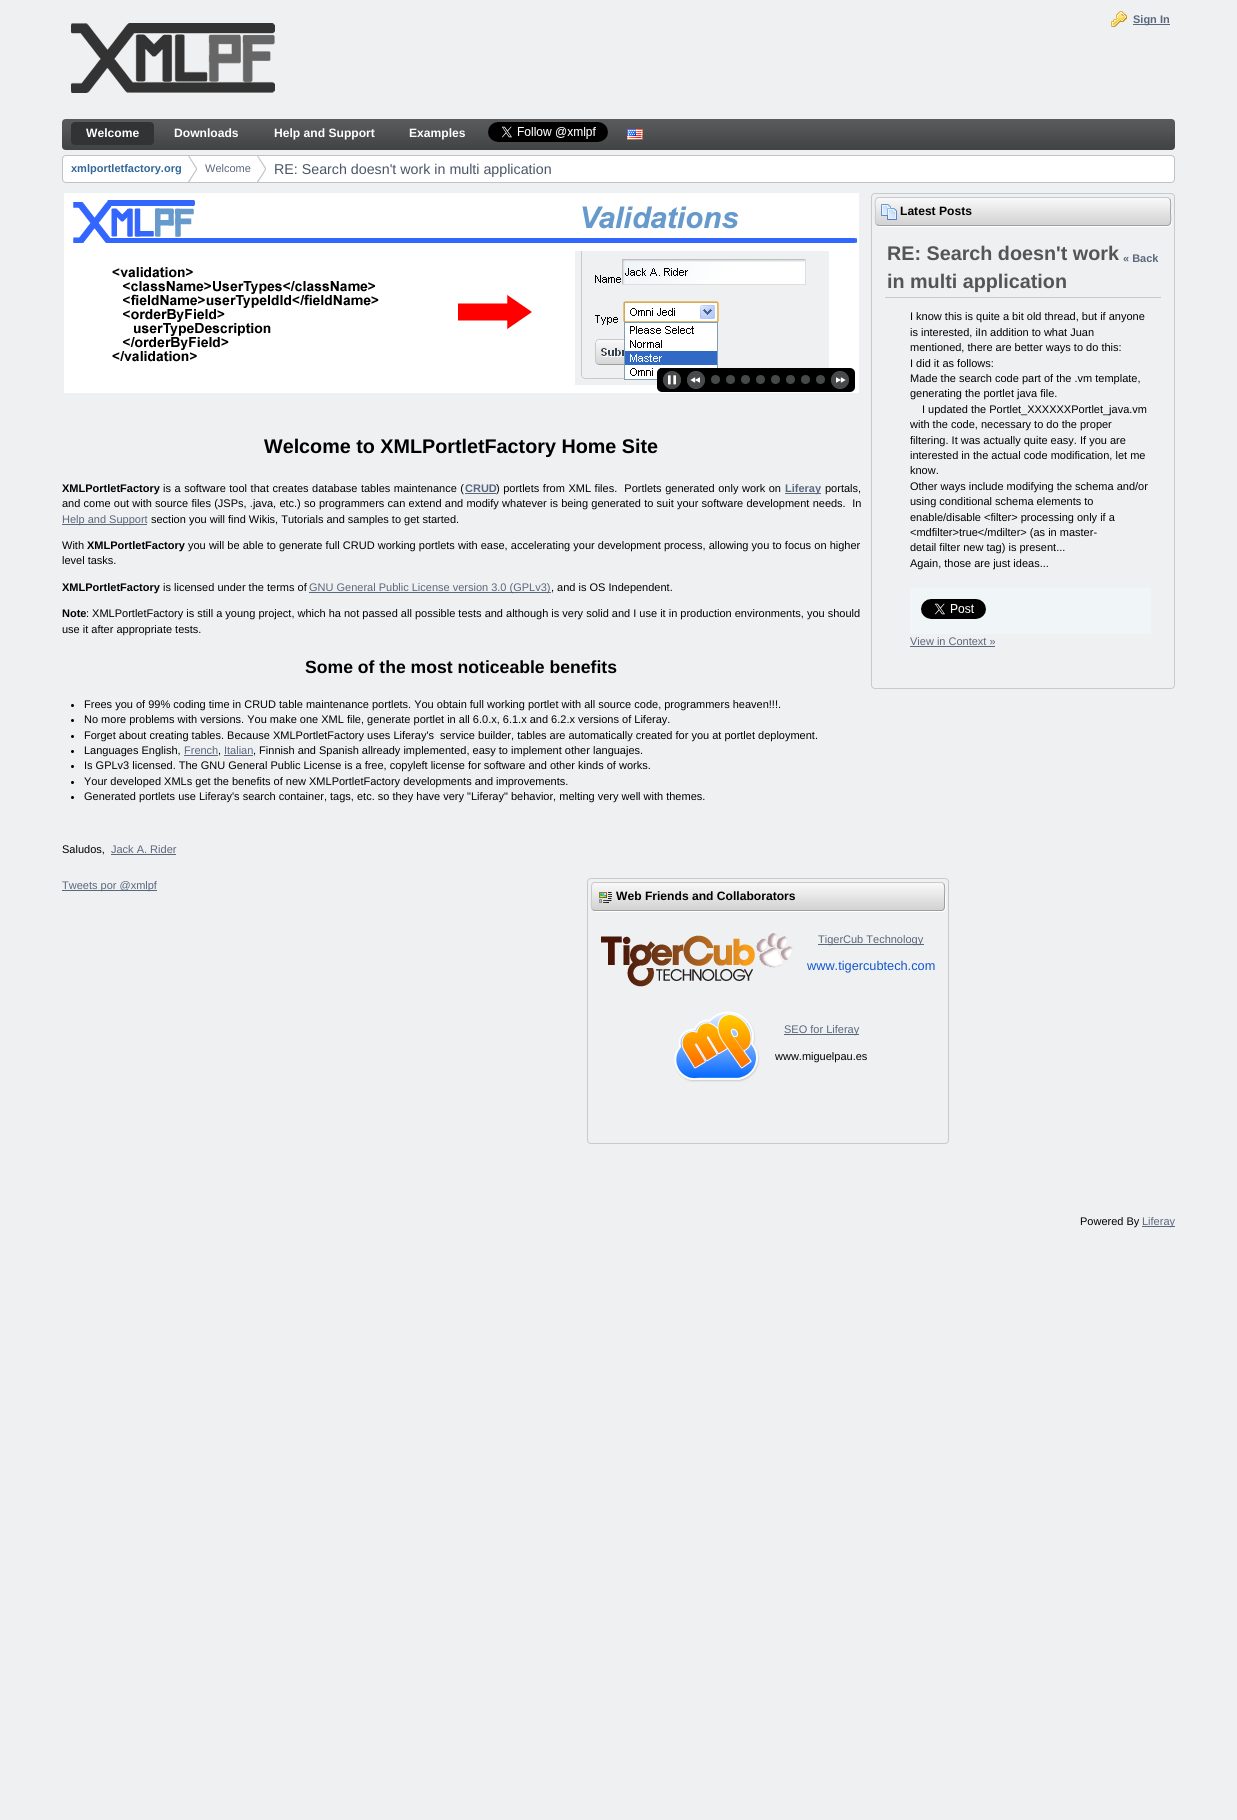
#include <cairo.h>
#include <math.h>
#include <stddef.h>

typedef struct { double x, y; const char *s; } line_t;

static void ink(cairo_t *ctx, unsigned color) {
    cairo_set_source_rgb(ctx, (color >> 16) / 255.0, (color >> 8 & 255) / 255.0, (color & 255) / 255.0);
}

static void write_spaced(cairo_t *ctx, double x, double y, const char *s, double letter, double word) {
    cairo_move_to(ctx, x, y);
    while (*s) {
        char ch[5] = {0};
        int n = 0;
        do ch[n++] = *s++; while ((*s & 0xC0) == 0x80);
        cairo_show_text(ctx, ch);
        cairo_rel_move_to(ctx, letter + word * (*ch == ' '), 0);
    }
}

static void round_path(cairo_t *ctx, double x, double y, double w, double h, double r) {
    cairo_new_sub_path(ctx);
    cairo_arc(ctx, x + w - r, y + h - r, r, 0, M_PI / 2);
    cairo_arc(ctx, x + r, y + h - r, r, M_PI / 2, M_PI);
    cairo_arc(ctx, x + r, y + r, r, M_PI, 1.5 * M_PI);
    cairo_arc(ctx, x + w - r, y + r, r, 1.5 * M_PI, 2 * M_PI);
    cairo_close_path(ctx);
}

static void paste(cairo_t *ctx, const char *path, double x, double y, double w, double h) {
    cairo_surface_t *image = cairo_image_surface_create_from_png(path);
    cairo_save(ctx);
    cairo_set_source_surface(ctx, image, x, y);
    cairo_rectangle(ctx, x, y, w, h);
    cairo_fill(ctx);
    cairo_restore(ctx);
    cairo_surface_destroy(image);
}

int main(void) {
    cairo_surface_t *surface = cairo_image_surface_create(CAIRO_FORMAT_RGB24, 1237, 1820);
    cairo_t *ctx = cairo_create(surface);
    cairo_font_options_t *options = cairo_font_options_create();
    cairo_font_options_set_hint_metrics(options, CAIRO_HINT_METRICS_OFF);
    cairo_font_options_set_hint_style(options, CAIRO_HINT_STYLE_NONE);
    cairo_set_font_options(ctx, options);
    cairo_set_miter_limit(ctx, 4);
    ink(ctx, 0xEEF0F2);
    cairo_paint(ctx);
    paste(ctx, "media/1.png", 1111, 11, 16, 16);
    ink(ctx, 0x5B677D);
    cairo_rectangle(ctx, 1133, 24, 37, 1);
    cairo_fill(ctx);
    cairo_select_font_face(ctx, "Liberation Sans", CAIRO_FONT_SLANT_NORMAL, CAIRO_FONT_WEIGHT_BOLD);
    cairo_set_font_size(ctx, 11);
    cairo_move_to(ctx, 1133, 23);
    cairo_show_text(ctx, "Sign In");
    paste(ctx, "media/2.png", 71, 23, 204, 70);
    paste(ctx, "media/3.png", 62, 119, 1113, 31);
    ink(ctx, 0x313334);
    round_path(ctx, 71, 122, 83, 23, 4);
    cairo_fill(ctx);
    cairo_set_font_size(ctx, 12.1);
    ink(ctx, 0xFFFFFF);
    {
        static const line_t items[] = {
            {86, 137, "Welcome"},
            {174, 137, "Downloads"},
            {274, 137, "Help and Support"},
            {409, 137, "Examples"},
        };
        for (size_t i = 0; i < sizeof items / sizeof *items; i++) {
            cairo_move_to(ctx, items[i].x, items[i].y);
            cairo_show_text(ctx, items[i].s);
        }
    }
    paste(ctx, "media/4.png", 488, 122, 120, 20);
    paste(ctx, "media/5.png", 627, 129, 16, 11);
    round_path(ctx, 62.5, 155.5, 1112, 27, 3.5);
    cairo_fill_preserve(ctx);
    ink(ctx, 0xC0C2C5);
    cairo_set_line_width(ctx, 1);
    cairo_stroke(ctx);
    paste(ctx, "media/6.png", 188, 156, 9, 26);
    cairo_set_font_size(ctx, 11);
    ink(ctx, 0x336699);
    cairo_move_to(ctx, 71, 172);
    cairo_show_text(ctx, "xmlportletfactory.org");
    paste(ctx, "media/6.png", 257, 156, 9, 26);
    cairo_select_font_face(ctx, "Liberation Sans", CAIRO_FONT_SLANT_NORMAL, CAIRO_FONT_WEIGHT_NORMAL);
    ink(ctx, 0x5B677D);
    cairo_move_to(ctx, 205, 172);
    cairo_show_text(ctx, "Welcome");
    cairo_set_font_size(ctx, 14.25);
    ink(ctx, 0x4B5567);
    cairo_move_to(ctx, 274, 174);
    cairo_show_text(ctx, "RE: Search doesn't work in multi application");
    paste(ctx, "media/7.png", 64, 193, 795, 200);
    ink(ctx, 0x000000);
    round_path(ctx, 657, 368, 198, 24, 5);
    cairo_fill(ctx);
    ink(ctx, 0x474A4B);
    cairo_arc(ctx, 672, 380, 9, 0, 2 * M_PI);
    cairo_fill(ctx);
    paste(ctx, "media/8.png", 663, 371, 18, 18);
    cairo_arc(ctx, 696, 380, 9, 0, 2 * M_PI);
    cairo_fill(ctx);
    paste(ctx, "media/9.png", 687, 371, 18, 18);
    cairo_arc(ctx, 715.5, 379.5, 4.5, 0, 2 * M_PI);
    cairo_fill(ctx);
    cairo_arc(ctx, 730.5, 379.5, 4.5, 0, 2 * M_PI);
    cairo_fill(ctx);
    cairo_arc(ctx, 745.5, 379.5, 4.5, 0, 2 * M_PI);
    cairo_fill(ctx);
    cairo_arc(ctx, 760.5, 379.5, 4.5, 0, 2 * M_PI);
    cairo_fill(ctx);
    cairo_arc(ctx, 775.5, 379.5, 4.5, 0, 2 * M_PI);
    cairo_fill(ctx);
    cairo_arc(ctx, 790.5, 379.5, 4.5, 0, 2 * M_PI);
    cairo_fill(ctx);
    cairo_arc(ctx, 805.5, 379.5, 4.5, 0, 2 * M_PI);
    cairo_fill(ctx);
    cairo_arc(ctx, 820.5, 379.5, 4.5, 0, 2 * M_PI);
    cairo_fill(ctx);
    cairo_arc(ctx, 840, 380, 9, 0, 2 * M_PI);
    cairo_fill(ctx);
    paste(ctx, "media/10.png", 831, 371, 18, 18);
    cairo_select_font_face(ctx, "Liberation Sans", CAIRO_FONT_SLANT_NORMAL, CAIRO_FONT_WEIGHT_BOLD);
    cairo_set_font_size(ctx, 19.75);
    ink(ctx, 0x000000);
    cairo_move_to(ctx, 264, 453);
    cairo_show_text(ctx, "Welcome to XMLPortletFactory Home Site");
    cairo_set_font_size(ctx, 11);
    cairo_move_to(ctx, 62, 492);
    cairo_show_text(ctx, "XMLPortletFactory");
    cairo_select_font_face(ctx, "Liberation Sans", CAIRO_FONT_SLANT_NORMAL, CAIRO_FONT_WEIGHT_NORMAL);
    write_spaced(ctx, 163, 492, "is a software tool that creates database tables maintenance (", 0, 0.5);
    cairo_select_font_face(ctx, "Liberation Sans", CAIRO_FONT_SLANT_NORMAL, CAIRO_FONT_WEIGHT_BOLD);
    ink(ctx, 0x5B677D);
    cairo_move_to(ctx, 465, 492);
    cairo_show_text(ctx, "CRUD");
    cairo_rectangle(ctx, 465, 493, 31, 1);
    cairo_fill(ctx);
    cairo_select_font_face(ctx, "Liberation Sans", CAIRO_FONT_SLANT_NORMAL, CAIRO_FONT_WEIGHT_NORMAL);
    ink(ctx, 0x000000);
    write_spaced(ctx, 496, 492, ") portlets from XML files.  Portlets generated only work on", 0, 0.5);
    ink(ctx, 0x5B677D);
    cairo_rectangle(ctx, 785, 493, 36, 1);
    cairo_fill(ctx);
    cairo_select_font_face(ctx, "Liberation Sans", CAIRO_FONT_SLANT_NORMAL, CAIRO_FONT_WEIGHT_BOLD);
    cairo_move_to(ctx, 785, 492);
    cairo_show_text(ctx, "Liferay");
    cairo_select_font_face(ctx, "Liberation Sans", CAIRO_FONT_SLANT_NORMAL, CAIRO_FONT_WEIGHT_NORMAL);
    ink(ctx, 0x000000);
    cairo_move_to(ctx, 825, 492);
    cairo_show_text(ctx, "portals,");
    write_spaced(ctx, 62, 507, "and come out with source files (JSPs, .java, etc.) so programmers can extend and modify whatever is being generated to suit your software development needs.  In", 0, 0.2);
    ink(ctx, 0x5B677D);
    cairo_rectangle(ctx, 62, 524, 85, 1);
    cairo_fill(ctx);
    cairo_move_to(ctx, 62, 523);
    cairo_show_text(ctx, "Help and Support");
    ink(ctx, 0x000000);
    cairo_move_to(ctx, 151, 523);
    cairo_show_text(ctx, "section you will find Wikis, Tutorials and samples to get started.");
    cairo_move_to(ctx, 62, 549);
    cairo_show_text(ctx, "With");
    cairo_select_font_face(ctx, "Liberation Sans", CAIRO_FONT_SLANT_NORMAL, CAIRO_FONT_WEIGHT_BOLD);
    cairo_move_to(ctx, 87, 549);
    cairo_show_text(ctx, "XMLPortletFactory");
    cairo_select_font_face(ctx, "Liberation Sans", CAIRO_FONT_SLANT_NORMAL, CAIRO_FONT_WEIGHT_NORMAL);
    write_spaced(ctx, 188, 549, "you will be able to generate full CRUD working portlets with ease, accelerating your development process, allowing you to focus on higher", 0, 0.1);
    cairo_move_to(ctx, 62, 564);
    cairo_show_text(ctx, "level tasks.");
    cairo_select_font_face(ctx, "Liberation Sans", CAIRO_FONT_SLANT_NORMAL, CAIRO_FONT_WEIGHT_BOLD);
    cairo_move_to(ctx, 62, 591);
    cairo_show_text(ctx, "XMLPortletFactory");
    cairo_select_font_face(ctx, "Liberation Sans", CAIRO_FONT_SLANT_NORMAL, CAIRO_FONT_WEIGHT_NORMAL);
    cairo_move_to(ctx, 163, 591);
    cairo_show_text(ctx, "is licensed under the terms of");
    ink(ctx, 0x5B677D);
    cairo_rectangle(ctx, 309, 592, 242, 1);
    cairo_fill(ctx);
    cairo_move_to(ctx, 309, 591);
    cairo_show_text(ctx, "GNU General Public License version 3.0 (GPLv3)");
    ink(ctx, 0x000000);
    cairo_move_to(ctx, 551, 591);
    cairo_show_text(ctx, ", and is OS Independent.");
    cairo_select_font_face(ctx, "Liberation Sans", CAIRO_FONT_SLANT_NORMAL, CAIRO_FONT_WEIGHT_BOLD);
    cairo_move_to(ctx, 62, 617);
    cairo_show_text(ctx, "Note");
    cairo_select_font_face(ctx, "Liberation Sans", CAIRO_FONT_SLANT_NORMAL, CAIRO_FONT_WEIGHT_NORMAL);
    cairo_move_to(ctx, 86, 617);
    cairo_show_text(ctx, ": XMLPortletFactory is still a young project, which ha not passed all possible tests and although is very solid and I use it in production environments, you should");
    cairo_move_to(ctx, 62, 633);
    cairo_show_text(ctx, "use it after appropriate tests.");
    cairo_select_font_face(ctx, "Liberation Sans", CAIRO_FONT_SLANT_NORMAL, CAIRO_FONT_WEIGHT_BOLD);
    cairo_set_font_size(ctx, 17.6);
    cairo_move_to(ctx, 305, 673);
    cairo_show_text(ctx, "Some of the most noticeable benefits");
    cairo_new_path(ctx);
    cairo_arc(ctx, 72.5, 705.5, 1.5, 0, 2 * M_PI);
    cairo_fill(ctx);
    cairo_select_font_face(ctx, "Liberation Sans", CAIRO_FONT_SLANT_NORMAL, CAIRO_FONT_WEIGHT_NORMAL);
    cairo_set_font_size(ctx, 11);
    cairo_move_to(ctx, 84, 708);
    cairo_show_text(ctx, "Frees you of 99% coding time in CRUD table maintenance portlets. You obtain full working portlet with all source code, programmers heaven!!!.");
    cairo_new_path(ctx);
    cairo_arc(ctx, 72.5, 720.5, 1.5, 0, 2 * M_PI);
    cairo_fill(ctx);
    cairo_move_to(ctx, 84, 723);
    cairo_show_text(ctx, "No more problems with versions. You make one XML file, generate portlet in all 6.0.x, 6.1.x and 6.2.x versions of Liferay.");
    cairo_new_path(ctx);
    cairo_arc(ctx, 72.5, 736.5, 1.5, 0, 2 * M_PI);
    cairo_fill(ctx);
    cairo_move_to(ctx, 84, 739);
    cairo_show_text(ctx, "Forget about creating tables. Because XMLPortletFactory uses Liferay's  service builder, tables are automatically created for you at portlet deployment.");
    cairo_new_path(ctx);
    cairo_arc(ctx, 72.5, 751.5, 1.5, 0, 2 * M_PI);
    cairo_fill(ctx);
    cairo_move_to(ctx, 84, 754);
    cairo_show_text(ctx, "Languages English,");
    ink(ctx, 0x5B677D);
    cairo_move_to(ctx, 184, 754);
    cairo_show_text(ctx, "French");
    cairo_rectangle(ctx, 184, 755, 34, 1);
    cairo_fill(ctx);
    cairo_move_to(ctx, 224, 754);
    cairo_show_text(ctx, "Italian");
    cairo_rectangle(ctx, 224, 755, 29, 1);
    cairo_fill(ctx);
    ink(ctx, 0x000000);
    cairo_move_to(ctx, 253, 754);
    cairo_show_text(ctx, ", Finnish and Spanish allready implemented, easy to implement other languajes.");
    cairo_move_to(ctx, 218, 754);
    cairo_show_text(ctx, ",");
    cairo_new_path(ctx);
    cairo_arc(ctx, 72.5, 766.5, 1.5, 0, 2 * M_PI);
    cairo_fill(ctx);
    cairo_move_to(ctx, 84, 769);
    cairo_show_text(ctx, "Is GPLv3 licensed. The GNU General Public License is a free, copyleft license for software and other kinds of works.");
    cairo_new_path(ctx);
    cairo_arc(ctx, 72.5, 782.5, 1.5, 0, 2 * M_PI);
    cairo_fill(ctx);
    cairo_move_to(ctx, 84, 785);
    cairo_show_text(ctx, "Your developed XMLs get the benefits of new XMLPortletFactory developments and improvements.");
    cairo_new_path(ctx);
    cairo_arc(ctx, 72.5, 797.5, 1.5, 0, 2 * M_PI);
    cairo_fill(ctx);
    cairo_move_to(ctx, 84, 800);
    cairo_show_text(ctx, "Generated portlets use Liferay's search container, tags, etc. so they have very \"Liferay\" behavior, melting very well with themes.");
    cairo_move_to(ctx, 62, 853);
    cairo_show_text(ctx, "Saludos,");
    ink(ctx, 0x5B677D);
    cairo_move_to(ctx, 111, 853);
    cairo_show_text(ctx, "Jack A. Rider");
    cairo_rectangle(ctx, 111, 854, 65, 1);
    cairo_fill(ctx);
    round_path(ctx, 871.5, 193.5, 303, 495, 3.5);
    ink(ctx, 0xC8C9CA);
    cairo_stroke(ctx);
    ink(ctx, 0xFFFFFF);
    cairo_new_path(ctx);
    cairo_move_to(ctx, 877, 225);
    cairo_curve_to(ctx, 877, 226, 879, 227, 880, 227);
    cairo_line_to(ctx, 1168, 227);
    cairo_curve_to(ctx, 1170, 227, 1172, 225, 1172, 223);
    cairo_line_to(ctx, 1172, 202);
    cairo_curve_to(ctx, 1172, 201, 1171, 199, 1170, 199);
    cairo_curve_to(ctx, 1172, 201, 1171, 212, 1171, 215);
    cairo_curve_to(ctx, 1171, 218, 1172, 226, 1167, 226);
    cairo_line_to(ctx, 878, 226);
    cairo_close_path(ctx);
    cairo_fill(ctx);
    ink(ctx, 0xD4D4D4);
    round_path(ctx, 875, 197, 296, 29, 4);
    cairo_fill(ctx);
    paste(ctx, "media/11.png", 875, 198, 296, 26);
    cairo_new_path(ctx);
    cairo_move_to(ctx, 1169.5, 198.5);
    cairo_curve_to(ctx, 1171.5, 200.5, 1170.5, 209, 1170.5, 211.5);
    cairo_curve_to(ctx, 1170.5, 214.5, 1172, 223, 1169, 225);
    cairo_line_to(ctx, 1167, 225.5);
    cairo_line_to(ctx, 879, 225.5);
    cairo_line_to(ctx, 876.5, 224.5);
    ink(ctx, 0x9E9E9E);
    cairo_stroke(ctx);
    cairo_new_path(ctx);
    cairo_move_to(ctx, 876.5, 224.5);
    cairo_curve_to(ctx, 874.5, 222.5, 875.5, 214, 875.5, 211.5);
    cairo_curve_to(ctx, 875.5, 208.5, 874, 200, 877, 198);
    cairo_line_to(ctx, 879, 197.5);
    cairo_line_to(ctx, 1167, 197.5);
    cairo_line_to(ctx, 1169.5, 198.5);
    ink(ctx, 0xC8C9CA);
    cairo_stroke(ctx);
    paste(ctx, "media/12.png", 881, 204, 16, 16);
    cairo_select_font_face(ctx, "Liberation Sans", CAIRO_FONT_SLANT_NORMAL, CAIRO_FONT_WEIGHT_BOLD);
    cairo_set_font_size(ctx, 12.1);
    ink(ctx, 0x000000);
    cairo_move_to(ctx, 900, 215);
    cairo_show_text(ctx, "Latest Posts");
    ink(ctx, 0xC8C9CA);
    cairo_rectangle(ctx, 885, 297, 276, 1);
    cairo_fill(ctx);
    cairo_set_font_size(ctx, 19.75);
    ink(ctx, 0x555555);
    cairo_move_to(ctx, 887, 260);
    cairo_show_text(ctx, "RE: Search doesn't work");
    cairo_move_to(ctx, 887, 288);
    cairo_show_text(ctx, "in multi application");
    cairo_set_font_size(ctx, 11);
    ink(ctx, 0x5B677D);
    cairo_move_to(ctx, 1123, 262);
    cairo_show_text(ctx, "« Back");
    cairo_select_font_face(ctx, "Liberation Sans", CAIRO_FONT_SLANT_NORMAL, CAIRO_FONT_WEIGHT_NORMAL);
    ink(ctx, 0x000000);
    {
        static const line_t items[] = {
            {910, 320, "I know this is quite a bit old thread, but if anyone"},
            {910, 336, "is interested, iIn addition to what Juan"},
            {910, 351, "mentioned, there are better ways to do this:"},
            {910, 367, "I did it as follows:"},
            {910, 382, "Made the search code part of the .vm template,"},
            {910, 397, "generating the portlet java file."},
            {922, 413, "I updated the Portlet_XXXXXXPortlet_java.vm"},
            {910, 428, "with the code, necessary to do the proper"},
            {910, 444, "filtering. It was actually quite easy. If you are"},
            {910, 459, "interested in the actual code modification, let me"},
            {910, 474, "know."},
            {910, 490, "Other ways include modifying the schema and/or"},
            {910, 505, "using conditional schema elements to"},
            {910, 521, "enable/disable <filter> processing only if a"},
            {910, 536, "<mdfilter>true</mdilter> (as in master-"},
            {910, 551, "detail filter new tag) is present..."},
            {910, 567, "Again, those are just ideas..."},
        };
        for (size_t i = 0; i < sizeof items / sizeof *items; i++) {
            cairo_move_to(ctx, items[i].x, items[i].y);
            cairo_show_text(ctx, items[i].s);
        }
    }
    ink(ctx, 0xF0F5F7);
    cairo_rectangle(ctx, 910, 588, 241, 46);
    cairo_fill(ctx);
    paste(ctx, "media/13.png", 921, 599, 65, 20);
    ink(ctx, 0x5B677D);
    cairo_move_to(ctx, 910, 645);
    cairo_show_text(ctx, "View in Context »");
    cairo_rectangle(ctx, 910, 646, 85, 1);
    cairo_fill(ctx);
    cairo_rectangle(ctx, 62, 890, 95, 1);
    cairo_fill(ctx);
    cairo_move_to(ctx, 62, 889);
    cairo_show_text(ctx, "Tweets por @xmlpf");
    round_path(ctx, 587.5, 878.5, 361, 265, 3.5);
    ink(ctx, 0xC8C9CA);
    cairo_stroke(ctx);
    ink(ctx, 0xFFFFFF);
    cairo_new_path(ctx);
    cairo_move_to(ctx, 593, 910);
    cairo_curve_to(ctx, 593, 911, 595, 912, 596, 912);
    cairo_line_to(ctx, 942, 912);
    cairo_curve_to(ctx, 944, 912, 946, 910, 946, 908);
    cairo_line_to(ctx, 946, 887);
    cairo_curve_to(ctx, 946, 886, 945, 884, 944, 884);
    cairo_curve_to(ctx, 946, 886, 945, 897, 945, 900);
    cairo_curve_to(ctx, 945, 903, 946, 911, 941, 911);
    cairo_line_to(ctx, 595, 911);
    cairo_close_path(ctx);
    cairo_fill(ctx);
    ink(ctx, 0xD4D4D4);
    round_path(ctx, 591, 882, 354, 29, 4);
    cairo_fill(ctx);
    paste(ctx, "media/14.png", 591, 883, 354, 26);
    cairo_new_path(ctx);
    cairo_move_to(ctx, 943.5, 883.5);
    cairo_curve_to(ctx, 945.5, 885.5, 944.5, 894, 944.5, 896.5);
    cairo_line_to(ctx, 944.5, 903.5);
    cairo_curve_to(ctx, 944.5, 906, 945, 909.5, 942, 910.5);
    cairo_line_to(ctx, 594.5, 910.5);
    cairo_line_to(ctx, 592.5, 909.5);
    ink(ctx, 0x9E9E9E);
    cairo_stroke(ctx);
    cairo_new_path(ctx);
    cairo_move_to(ctx, 592.5, 909.5);
    cairo_curve_to(ctx, 590.5, 907.5, 591.5, 899, 591.5, 896.5);
    cairo_line_to(ctx, 591.5, 889.5);
    cairo_curve_to(ctx, 591.5, 887, 591, 883.5, 594, 882.5);
    cairo_line_to(ctx, 941.5, 882.5);
    cairo_line_to(ctx, 943.5, 883.5);
    ink(ctx, 0xC8C9CA);
    cairo_stroke(ctx);
    paste(ctx, "media/15.png", 599, 892, 13, 11);
    cairo_select_font_face(ctx, "Liberation Sans", CAIRO_FONT_SLANT_NORMAL, CAIRO_FONT_WEIGHT_BOLD);
    cairo_set_font_size(ctx, 12.1);
    ink(ctx, 0x000000);
    cairo_move_to(ctx, 616, 900);
    cairo_show_text(ctx, "Web Friends and Collaborators");
    paste(ctx, "media/16.png", 601, 933, 192, 54);
    ink(ctx, 0x5B677D);
    cairo_rectangle(ctx, 818, 944, 106, 1);
    cairo_fill(ctx);
    cairo_select_font_face(ctx, "Liberation Sans", CAIRO_FONT_SLANT_NORMAL, CAIRO_FONT_WEIGHT_NORMAL);
    cairo_set_font_size(ctx, 11);
    cairo_move_to(ctx, 818, 943);
    cairo_show_text(ctx, "TigerCub Technology");
    cairo_set_font_size(ctx, 12.75);
    ink(ctx, 0x1155CC);
    cairo_move_to(ctx, 807, 970);
    cairo_show_text(ctx, "www.tigercubtech.com");
    paste(ctx, "media/17.png", 674, 1011, 86, 71);
    ink(ctx, 0x5B677D);
    cairo_rectangle(ctx, 784, 1034, 75, 1);
    cairo_fill(ctx);
    cairo_set_font_size(ctx, 11);
    cairo_move_to(ctx, 784, 1033);
    cairo_show_text(ctx, "SEO for Liferay");
    ink(ctx, 0x000000);
    cairo_move_to(ctx, 775, 1060);
    cairo_show_text(ctx, "www.miguelpau.es");
    cairo_move_to(ctx, 1080, 1225);
    cairo_show_text(ctx, "Powered By");
    ink(ctx, 0x5B677D);
    cairo_rectangle(ctx, 1142, 1226, 33, 1);
    cairo_fill(ctx);
    cairo_move_to(ctx, 1142, 1225);
    cairo_show_text(ctx, "Liferay");
    cairo_surface_write_to_png(surface, "image.png");
    cairo_font_options_destroy(options);
    cairo_destroy(ctx);
    cairo_surface_destroy(surface);
    return 0;
}
